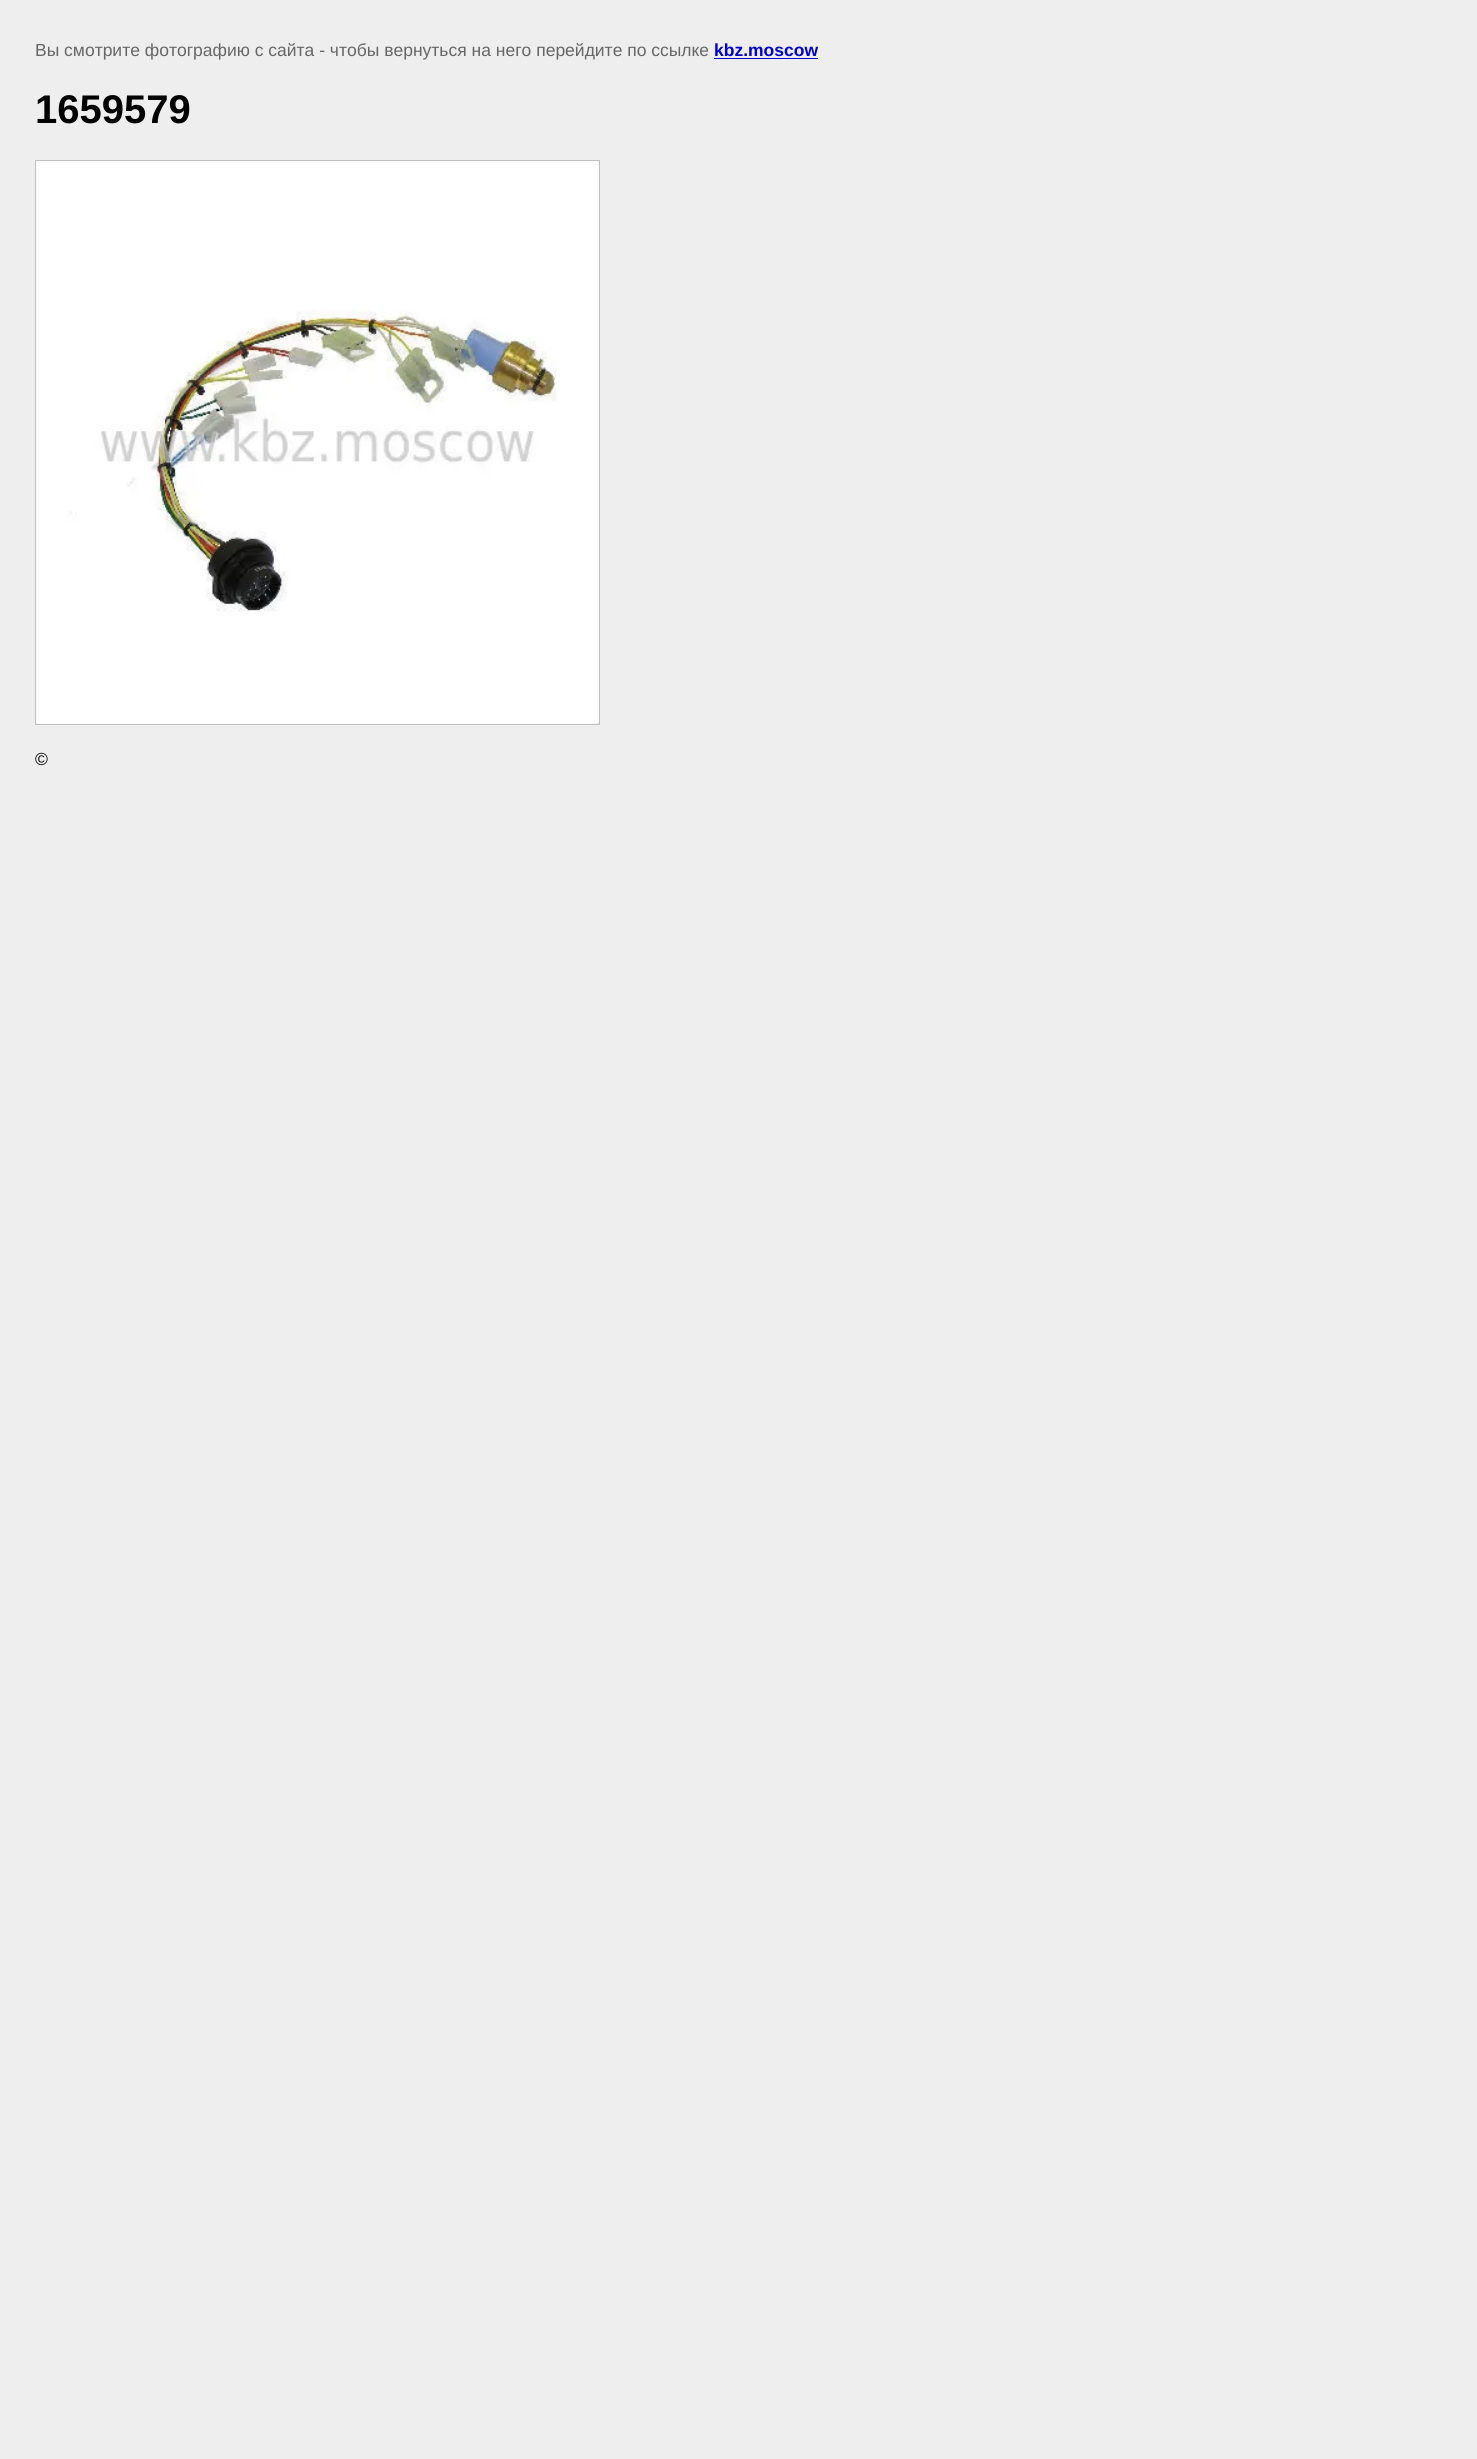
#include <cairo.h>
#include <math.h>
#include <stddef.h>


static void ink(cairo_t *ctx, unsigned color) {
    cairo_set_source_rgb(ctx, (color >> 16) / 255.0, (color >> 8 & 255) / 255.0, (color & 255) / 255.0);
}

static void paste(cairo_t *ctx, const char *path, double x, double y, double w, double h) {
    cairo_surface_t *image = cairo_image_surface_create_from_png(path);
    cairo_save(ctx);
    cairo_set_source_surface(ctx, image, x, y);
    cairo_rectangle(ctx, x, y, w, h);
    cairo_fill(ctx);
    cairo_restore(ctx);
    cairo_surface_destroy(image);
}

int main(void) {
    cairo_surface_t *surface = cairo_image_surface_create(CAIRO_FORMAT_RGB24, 1477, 2459);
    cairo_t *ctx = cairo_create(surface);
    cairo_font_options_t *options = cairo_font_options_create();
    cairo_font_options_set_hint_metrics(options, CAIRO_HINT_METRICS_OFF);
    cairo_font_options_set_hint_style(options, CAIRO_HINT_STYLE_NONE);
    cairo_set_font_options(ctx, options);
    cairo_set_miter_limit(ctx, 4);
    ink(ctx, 0xEEEEEE);
    cairo_paint(ctx);
    cairo_select_font_face(ctx, "Liberation Sans", CAIRO_FONT_SLANT_NORMAL, CAIRO_FONT_WEIGHT_NORMAL);
    cairo_set_font_size(ctx, 17.5);
    ink(ctx, 0x666666);
    cairo_move_to(ctx, 35, 56);
    cairo_show_text(ctx, "Вы смотрите фотографию с сайта - чтобы вернуться на него перейдите по ссылке");
    cairo_select_font_face(ctx, "Liberation Sans", CAIRO_FONT_SLANT_NORMAL, CAIRO_FONT_WEIGHT_BOLD);
    ink(ctx, 0x0000CC);
    cairo_move_to(ctx, 714, 56);
    cairo_show_text(ctx, "kbz.moscow");
    cairo_rectangle(ctx, 714, 58, 104, 1);
    cairo_fill(ctx);
    cairo_set_font_size(ctx, 40);
    ink(ctx, 0x000000);
    cairo_move_to(ctx, 35, 123);
    cairo_show_text(ctx, "1659579");
    cairo_rectangle(ctx, 35.5, 160.5, 564, 564);
    ink(ctx, 0xC0C0C0);
    cairo_set_line_width(ctx, 1);
    cairo_stroke(ctx);
    paste(ctx, "media/1.png", 36, 161, 563, 563);
    cairo_select_font_face(ctx, "Liberation Sans", CAIRO_FONT_SLANT_NORMAL, CAIRO_FONT_WEIGHT_NORMAL);
    cairo_set_font_size(ctx, 17.5);
    ink(ctx, 0x000000);
    cairo_move_to(ctx, 35, 765);
    cairo_show_text(ctx, "©");
    cairo_surface_write_to_png(surface, "image.png");
    cairo_font_options_destroy(options);
    cairo_destroy(ctx);
    cairo_surface_destroy(surface);
    return 0;
}
